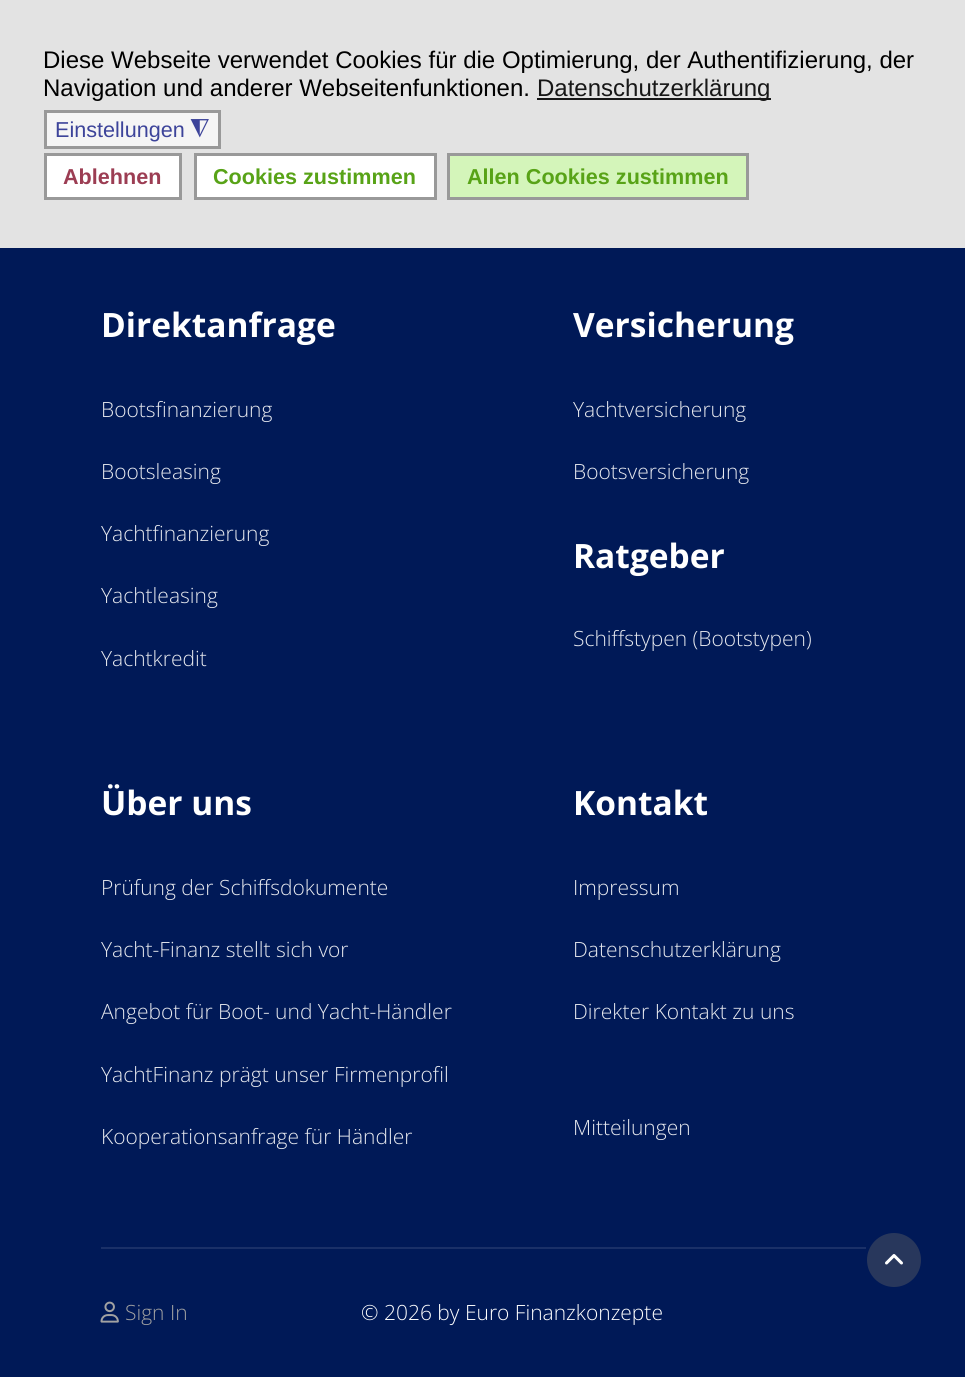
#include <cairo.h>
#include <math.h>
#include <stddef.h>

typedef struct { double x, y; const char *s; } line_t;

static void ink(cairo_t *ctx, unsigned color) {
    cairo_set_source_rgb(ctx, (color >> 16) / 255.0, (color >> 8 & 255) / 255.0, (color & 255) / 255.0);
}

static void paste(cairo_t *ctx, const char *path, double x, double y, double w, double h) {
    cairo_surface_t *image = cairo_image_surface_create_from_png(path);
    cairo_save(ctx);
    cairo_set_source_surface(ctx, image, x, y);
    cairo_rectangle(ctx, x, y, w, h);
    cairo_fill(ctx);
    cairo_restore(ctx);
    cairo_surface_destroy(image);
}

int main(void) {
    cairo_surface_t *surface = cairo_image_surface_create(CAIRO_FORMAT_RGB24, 965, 1377);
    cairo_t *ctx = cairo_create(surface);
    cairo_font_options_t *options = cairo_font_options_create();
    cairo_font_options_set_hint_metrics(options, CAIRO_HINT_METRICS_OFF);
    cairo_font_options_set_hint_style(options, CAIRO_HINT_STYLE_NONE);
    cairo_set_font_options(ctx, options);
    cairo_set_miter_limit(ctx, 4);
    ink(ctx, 0x001957);
    cairo_paint(ctx);
    ink(ctx, 0xE3E3E3);
    cairo_rectangle(ctx, 0, 0, 965, 248);
    cairo_fill(ctx);
    cairo_select_font_face(ctx, "Liberation Sans", CAIRO_FONT_SLANT_NORMAL, CAIRO_FONT_WEIGHT_NORMAL);
    cairo_set_font_size(ctx, 24);
    ink(ctx, 0x000000);
    cairo_move_to(ctx, 43, 68);
    cairo_show_text(ctx, "Diese Webseite verwendet Cookies für die Optimierung, der Authentifizierung, der");
    cairo_move_to(ctx, 43, 96);
    cairo_show_text(ctx, "Navigation und anderer Webseitenfunktionen.");
    ink(ctx, 0x171717);
    cairo_rectangle(ctx, 537, 98, 234, 2);
    cairo_fill(ctx);
    cairo_move_to(ctx, 537, 96);
    cairo_show_text(ctx, "Datenschutzerklärung");
    ink(ctx, 0xF5F5F5);
    cairo_rectangle(ctx, 45.5, 111.5, 174, 36);
    cairo_fill_preserve(ctx);
    ink(ctx, 0x999999);
    cairo_set_line_width(ctx, 3);
    cairo_stroke(ctx);
    cairo_set_font_size(ctx, 21.6);
    ink(ctx, 0x3D449A);
    cairo_move_to(ctx, 55, 137);
    cairo_show_text(ctx, "Einstellungen");
    cairo_select_font_face(ctx, "DejaVu Sans", CAIRO_FONT_SLANT_NORMAL, CAIRO_FONT_WEIGHT_NORMAL);
    cairo_set_font_size(ctx, 24);
    cairo_save(ctx);
    cairo_translate(ctx, 209, 122);
    cairo_rotate(ctx, 180 * M_PI / 180);
    cairo_move_to(ctx, 0, 0);
    cairo_show_text(ctx, "◮");
    cairo_restore(ctx);
    ink(ctx, 0xFFFFFF);
    cairo_rectangle(ctx, 45.5, 154.5, 135, 44);
    cairo_fill_preserve(ctx);
    ink(ctx, 0x999999);
    cairo_stroke(ctx);
    cairo_select_font_face(ctx, "Liberation Sans", CAIRO_FONT_SLANT_NORMAL, CAIRO_FONT_WEIGHT_BOLD);
    cairo_set_font_size(ctx, 21.6);
    ink(ctx, 0x9C3D53);
    cairo_move_to(ctx, 63, 184);
    cairo_show_text(ctx, "Ablehnen");
    ink(ctx, 0xFFFFFF);
    cairo_rectangle(ctx, 195.5, 154.5, 240, 44);
    cairo_fill_preserve(ctx);
    ink(ctx, 0x999999);
    cairo_stroke(ctx);
    ink(ctx, 0x58A317);
    cairo_move_to(ctx, 213, 184);
    cairo_show_text(ctx, "Cookies zustimmen");
    ink(ctx, 0xD4F5BA);
    cairo_rectangle(ctx, 448.5, 154.5, 299, 44);
    cairo_fill_preserve(ctx);
    ink(ctx, 0x999999);
    cairo_stroke(ctx);
    ink(ctx, 0x58A317);
    cairo_move_to(ctx, 467, 184);
    cairo_show_text(ctx, "Allen Cookies zustimmen");
    cairo_select_font_face(ctx, "Open Sans", CAIRO_FONT_SLANT_NORMAL, CAIRO_FONT_WEIGHT_BOLD);
    cairo_set_font_size(ctx, 33.5);
    ink(ctx, 0xFFFFFF);
    cairo_move_to(ctx, 101, 337);
    cairo_show_text(ctx, "Direktanfrage");
    cairo_select_font_face(ctx, "Open Sans Light", CAIRO_FONT_SLANT_NORMAL, CAIRO_FONT_WEIGHT_NORMAL);
    cairo_set_font_size(ctx, 21);
    ink(ctx, 0xE6E8EE);
    {
        static const line_t items[] = {
            {101, 417, "Bootsfinanzierung"},
            {101, 479, "Bootsleasing"},
            {101, 541, "Yachtfinanzierung"},
            {101, 603, "Yachtleasing"},
            {101, 666, "Yachtkredit"},
        };
        for (size_t i = 0; i < sizeof items / sizeof *items; i++) {
            cairo_move_to(ctx, items[i].x, items[i].y);
            cairo_show_text(ctx, items[i].s);
        }
    }
    cairo_select_font_face(ctx, "Open Sans", CAIRO_FONT_SLANT_NORMAL, CAIRO_FONT_WEIGHT_BOLD);
    cairo_set_font_size(ctx, 33.5);
    ink(ctx, 0xFFFFFF);
    cairo_move_to(ctx, 573, 337);
    cairo_show_text(ctx, "Versicherung");
    cairo_select_font_face(ctx, "Open Sans Light", CAIRO_FONT_SLANT_NORMAL, CAIRO_FONT_WEIGHT_NORMAL);
    cairo_set_font_size(ctx, 21);
    ink(ctx, 0xE6E8EE);
    cairo_move_to(ctx, 573, 417);
    cairo_show_text(ctx, "Yachtversicherung");
    cairo_move_to(ctx, 573, 479);
    cairo_show_text(ctx, "Bootsversicherung");
    cairo_select_font_face(ctx, "Open Sans", CAIRO_FONT_SLANT_NORMAL, CAIRO_FONT_WEIGHT_BOLD);
    cairo_set_font_size(ctx, 33.5);
    ink(ctx, 0xFFFFFF);
    cairo_move_to(ctx, 573, 568);
    cairo_show_text(ctx, "Ratgeber");
    cairo_select_font_face(ctx, "Open Sans Light", CAIRO_FONT_SLANT_NORMAL, CAIRO_FONT_WEIGHT_NORMAL);
    cairo_set_font_size(ctx, 21);
    ink(ctx, 0xE6E8EE);
    cairo_move_to(ctx, 573, 646);
    cairo_show_text(ctx, "Schiffstypen (Bootstypen)");
    cairo_select_font_face(ctx, "Open Sans", CAIRO_FONT_SLANT_NORMAL, CAIRO_FONT_WEIGHT_BOLD);
    cairo_set_font_size(ctx, 33.5);
    ink(ctx, 0xFFFFFF);
    cairo_move_to(ctx, 101, 815);
    cairo_show_text(ctx, "Über uns");
    cairo_select_font_face(ctx, "Open Sans Light", CAIRO_FONT_SLANT_NORMAL, CAIRO_FONT_WEIGHT_NORMAL);
    cairo_set_font_size(ctx, 21);
    ink(ctx, 0xE6E8EE);
    {
        static const line_t items[] = {
            {101, 895, "Prüfung der Schiffsdokumente"},
            {101, 957, "Yacht-Finanz stellt sich vor"},
            {101, 1019, "Angebot für Boot- und Yacht-Händler"},
            {101, 1082, "YachtFinanz prägt unser Firmenprofil"},
            {101, 1144, "Kooperationsanfrage für Händler"},
        };
        for (size_t i = 0; i < sizeof items / sizeof *items; i++) {
            cairo_move_to(ctx, items[i].x, items[i].y);
            cairo_show_text(ctx, items[i].s);
        }
    }
    cairo_select_font_face(ctx, "Open Sans", CAIRO_FONT_SLANT_NORMAL, CAIRO_FONT_WEIGHT_BOLD);
    cairo_set_font_size(ctx, 33.5);
    ink(ctx, 0xFFFFFF);
    cairo_move_to(ctx, 573, 815);
    cairo_show_text(ctx, "Kontakt");
    cairo_select_font_face(ctx, "Open Sans Light", CAIRO_FONT_SLANT_NORMAL, CAIRO_FONT_WEIGHT_NORMAL);
    cairo_set_font_size(ctx, 21);
    ink(ctx, 0xE6E8EE);
    {
        static const line_t items[] = {
            {573, 895, "Impressum"},
            {573, 957, "Datenschutzerklärung"},
            {573, 1019, "Direkter Kontakt zu uns"},
            {573, 1135, "Mitteilungen"},
        };
        for (size_t i = 0; i < sizeof items / sizeof *items; i++) {
            cairo_move_to(ctx, items[i].x, items[i].y);
            cairo_show_text(ctx, items[i].s);
        }
    }
    ink(ctx, 0x1A3068);
    cairo_rectangle(ctx, 101, 1247, 765, 2);
    cairo_fill(ctx);
    paste(ctx, "media/1.png", 100, 1301, 19, 22);
    ink(ctx, 0xA2A2A2);
    cairo_move_to(ctx, 125, 1320);
    cairo_show_text(ctx, "Sign In");
    ink(ctx, 0xFFFFFF);
    cairo_move_to(ctx, 361, 1320);
    cairo_show_text(ctx, "© 2026 by Euro Finanzkonzepte");
    ink(ctx, 0x28375C);
    cairo_new_path(ctx);
    cairo_arc(ctx, 894, 1260, 27, 0, 2 * M_PI);
    cairo_fill(ctx);
    paste(ctx, "media/2.png", 885, 1254, 18, 11);
    cairo_surface_write_to_png(surface, "image.png");
    cairo_font_options_destroy(options);
    cairo_destroy(ctx);
    cairo_surface_destroy(surface);
    return 0;
}
